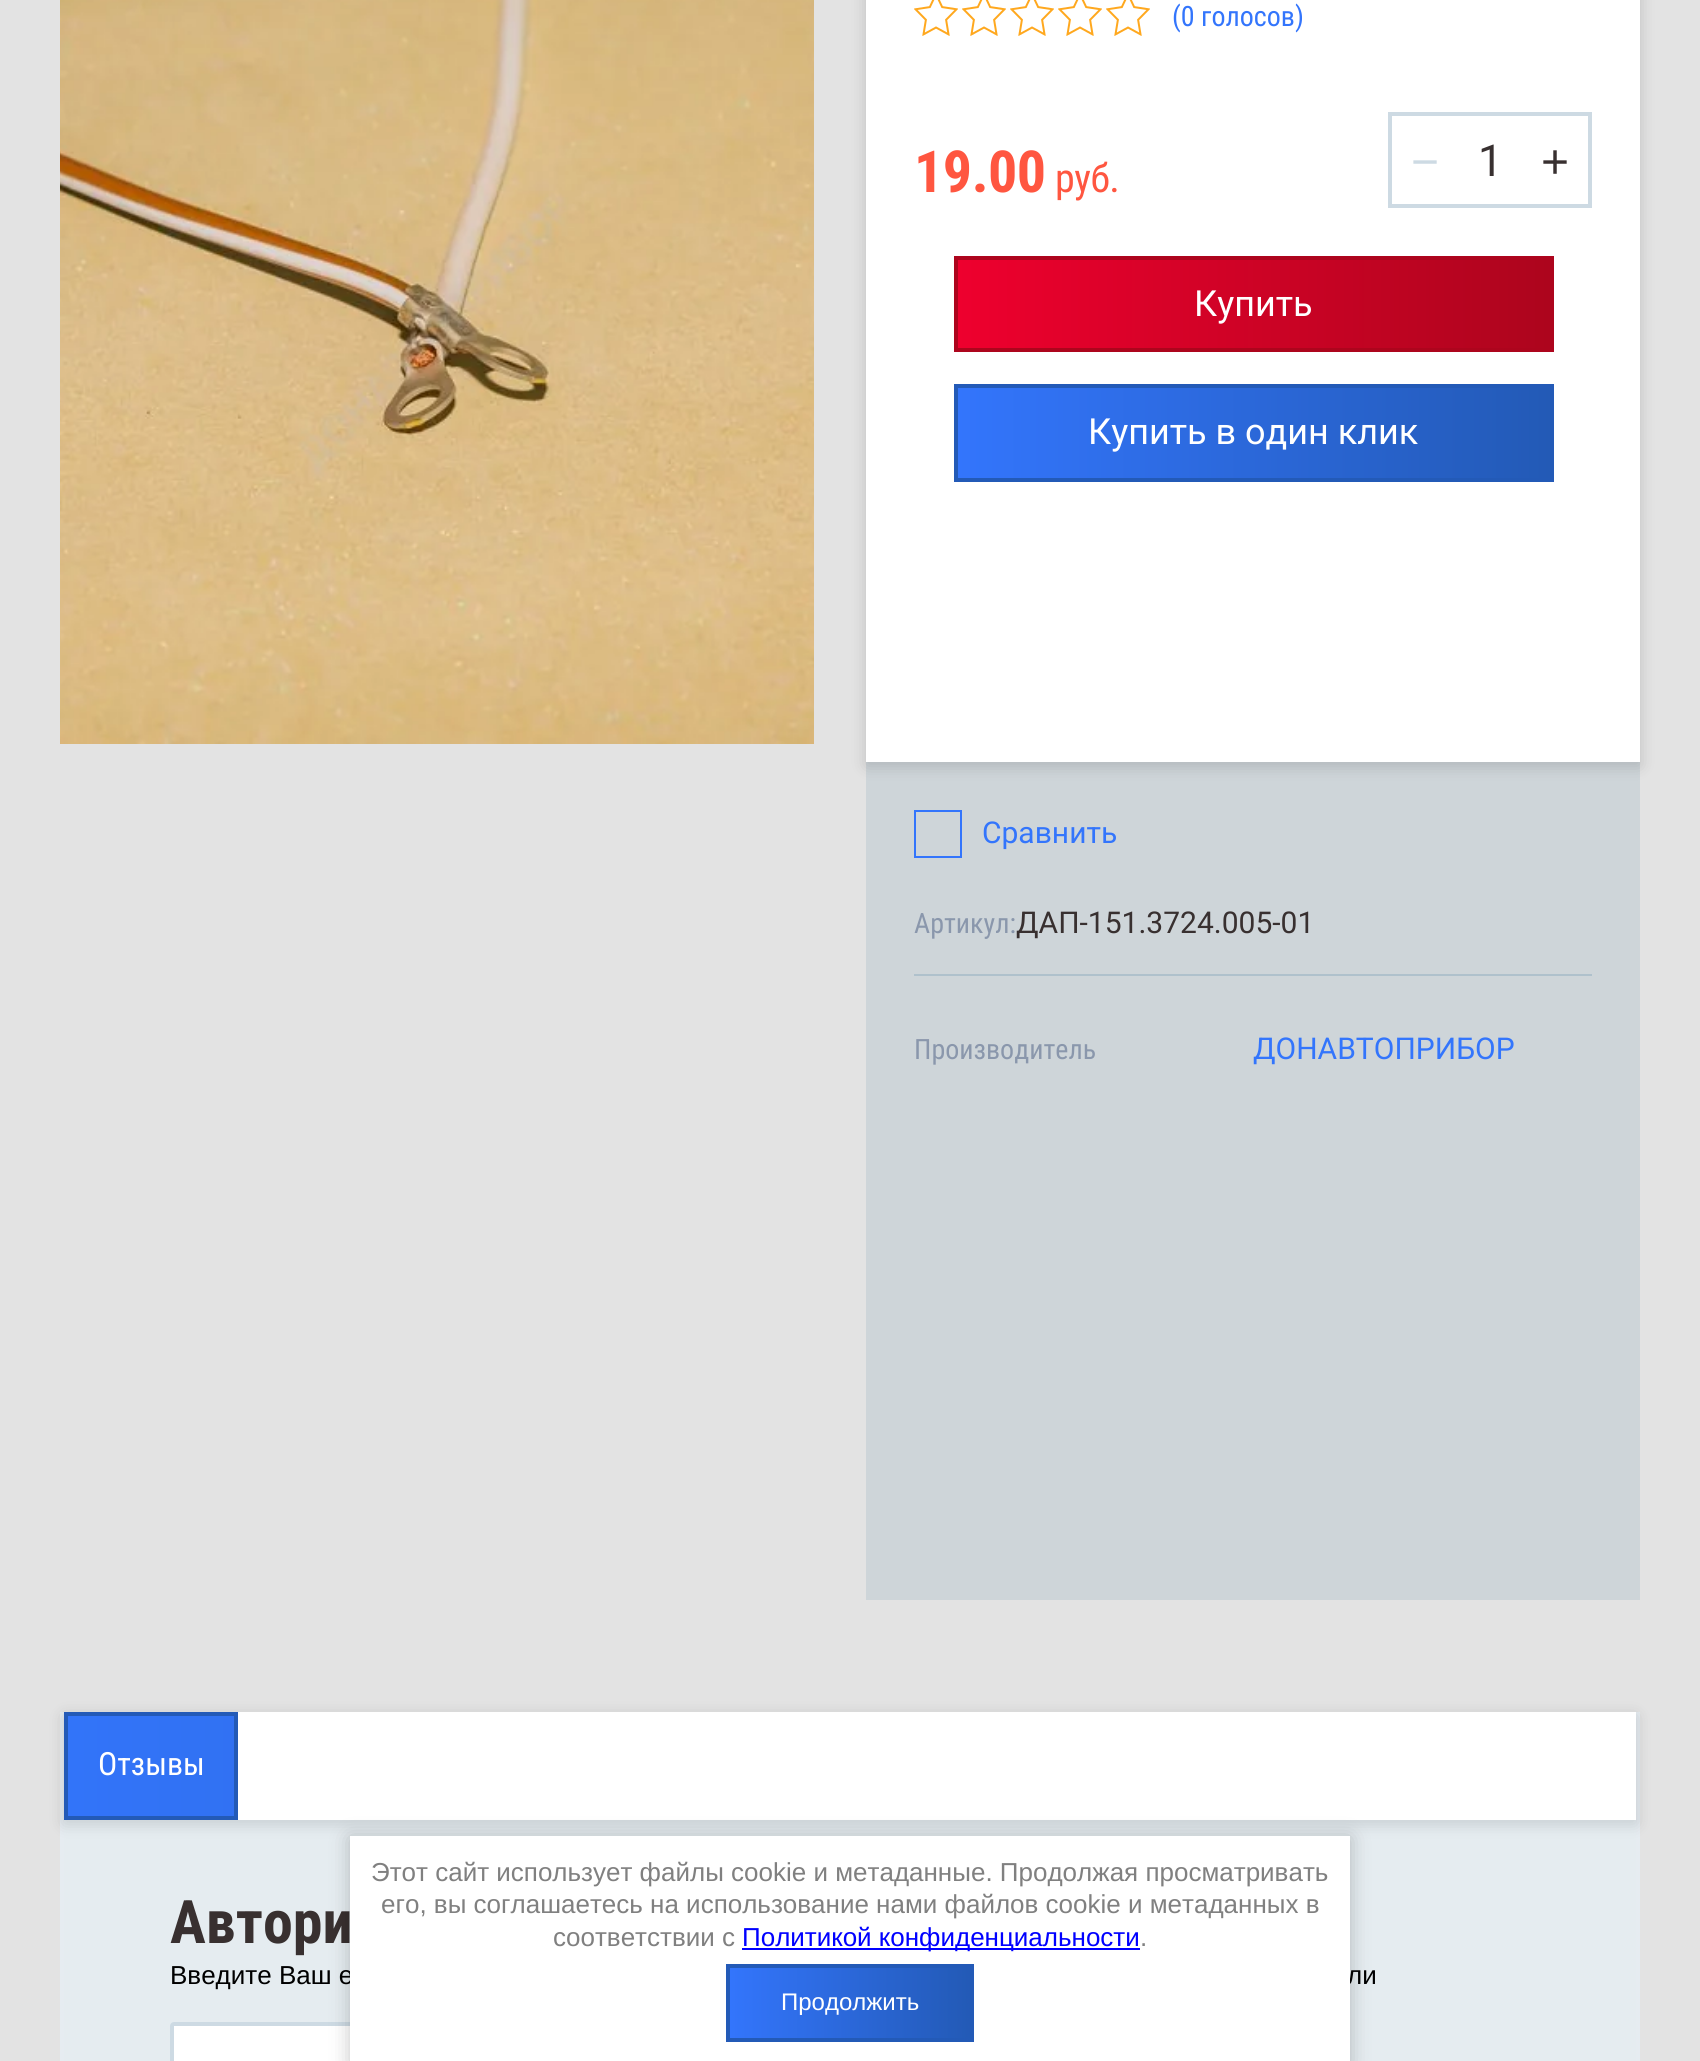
#include <cairo.h>
#include <math.h>
#include <stddef.h>

typedef struct { double x, y; const char *s; } line_t;
typedef struct { double x, y, w, h; unsigned color; } box_t;

static void ink(cairo_t *ctx, unsigned color) {
    cairo_set_source_rgb(ctx, (color >> 16) / 255.0, (color >> 8 & 255) / 255.0, (color & 255) / 255.0);
}

static void write_spaced(cairo_t *ctx, double x, double y, const char *s, double letter, double word) {
    cairo_move_to(ctx, x, y);
    while (*s) {
        char ch[5] = {0};
        int n = 0;
        do ch[n++] = *s++; while ((*s & 0xC0) == 0x80);
        cairo_show_text(ctx, ch);
        cairo_rel_move_to(ctx, letter + word * (*ch == ' '), 0);
    }
}

static void round_path(cairo_t *ctx, double x, double y, double w, double h, double r) {
    cairo_new_sub_path(ctx);
    cairo_arc(ctx, x + w - r, y + h - r, r, 0, M_PI / 2);
    cairo_arc(ctx, x + r, y + h - r, r, M_PI / 2, M_PI);
    cairo_arc(ctx, x + r, y + r, r, M_PI, 1.5 * M_PI);
    cairo_arc(ctx, x + w - r, y + r, r, 1.5 * M_PI, 2 * M_PI);
    cairo_close_path(ctx);
}

static void blur_box(cairo_t *ctx, double x, double y, double w, double h, double r, double blur, double alpha) {
    cairo_push_group_with_content(ctx, CAIRO_CONTENT_ALPHA);
    cairo_set_operator(ctx, CAIRO_OPERATOR_SOURCE);
    for (int i = 15; i >= -15 && fmin(w, h) + blur * i / 3 > 0; i -= 2) {
        double e = blur * i / 6;
        cairo_set_source_rgba(ctx, 0, 0, 0, alpha * erfc((i - 1) / 8.5) / 2);
        round_path(ctx, x - e, y - e, w + 2 * e, h + 2 * e, fmax(0, fmin(r + e + blur * .6, fmin(w, h) / 2 + e)));
        cairo_fill(ctx);
    }
    cairo_pattern_t *soft = cairo_pop_group(ctx);
    cairo_mask(ctx, soft);
    cairo_pattern_destroy(soft);
}

static void paste(cairo_t *ctx, const char *path, double x, double y, double w, double h) {
    cairo_surface_t *image = cairo_image_surface_create_from_png(path);
    cairo_save(ctx);
    cairo_set_source_surface(ctx, image, x, y);
    cairo_rectangle(ctx, x, y, w, h);
    cairo_fill(ctx);
    cairo_restore(ctx);
    cairo_surface_destroy(image);
}

int main(void) {
    cairo_surface_t *surface = cairo_image_surface_create(CAIRO_FORMAT_RGB24, 1700, 2061);
    cairo_t *ctx = cairo_create(surface);
    cairo_font_options_t *options = cairo_font_options_create();
    cairo_font_options_set_hint_metrics(options, CAIRO_HINT_METRICS_OFF);
    cairo_font_options_set_hint_style(options, CAIRO_HINT_STYLE_NONE);
    cairo_set_font_options(ctx, options);
    cairo_set_miter_limit(ctx, 4);
    cairo_pattern_t *gradient;
    ink(ctx, 0xE3E3E3);
    cairo_paint(ctx);
    paste(ctx, "media/1.png", 60, 0, 754, 744);
    ink(ctx, 0xCED5D9);
    cairo_rectangle(ctx, 866, 762, 774, 838);
    cairo_fill(ctx);
    ink(ctx, 0x000000);
    blur_box(ctx, 866, -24, 774, 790, 0, 8, 0.16);
    ink(ctx, 0xFFFFFF);
    cairo_rectangle(ctx, 866, 0, 774, 762);
    cairo_fill(ctx);
    paste(ctx, "media/2.png", 914, 0, 236, 36);
    cairo_select_font_face(ctx, "Roboto Condensed", CAIRO_FONT_SLANT_NORMAL, CAIRO_FONT_WEIGHT_NORMAL);
    cairo_set_font_size(ctx, 28);
    ink(ctx, 0x3375FC);
    cairo_move_to(ctx, 1172, 26);
    cairo_show_text(ctx, "(0 голосов)");
    cairo_select_font_face(ctx, "Roboto Condensed", CAIRO_FONT_SLANT_NORMAL, CAIRO_FONT_WEIGHT_BOLD);
    cairo_set_font_size(ctx, 58);
    ink(ctx, 0xFF5640);
    write_spaced(ctx, 914, 192, "19.00", -0.5, 0);
    cairo_select_font_face(ctx, "Roboto Condensed", CAIRO_FONT_SLANT_NORMAL, CAIRO_FONT_WEIGHT_NORMAL);
    cairo_set_font_size(ctx, 40);
    write_spaced(ctx, 1055, 192, "руб.", -0.5, 0);
    cairo_rectangle(ctx, 1390, 114, 200, 92);
    ink(ctx, 0xCDDAE3);
    cairo_set_line_width(ctx, 4);
    cairo_stroke(ctx);
    cairo_select_font_face(ctx, "Liberation Sans", CAIRO_FONT_SLANT_NORMAL, CAIRO_FONT_WEIGHT_NORMAL);
    cairo_set_font_size(ctx, 48);
    cairo_move_to(ctx, 1411, 178);
    cairo_show_text(ctx, "−");
    cairo_select_font_face(ctx, "Roboto", CAIRO_FONT_SLANT_NORMAL, CAIRO_FONT_WEIGHT_NORMAL);
    cairo_set_font_size(ctx, 44);
    ink(ctx, 0x383030);
    cairo_move_to(ctx, 1478, 176);
    cairo_show_text(ctx, "1");
    cairo_select_font_face(ctx, "Liberation Sans", CAIRO_FONT_SLANT_NORMAL, CAIRO_FONT_WEIGHT_NORMAL);
    cairo_set_font_size(ctx, 48);
    cairo_move_to(ctx, 1541, 178);
    cairo_show_text(ctx, "+");
    gradient = cairo_pattern_create_linear(1550, 304, 958, 304);
    cairo_pattern_add_color_stop_rgba(gradient, 0, 0.678, 0.02, 0.114, 1);
    cairo_pattern_add_color_stop_rgba(gradient, 1, 0.933, 0, 0.18, 1);
    cairo_set_source(ctx, gradient);
    cairo_pattern_destroy(gradient);
    cairo_rectangle(ctx, 958, 260, 592, 88);
    cairo_fill(ctx);
    cairo_rectangle(ctx, 956, 258, 596, 92);
    ink(ctx, 0xAD051D);
    cairo_stroke(ctx);
    cairo_select_font_face(ctx, "Roboto", CAIRO_FONT_SLANT_NORMAL, CAIRO_FONT_WEIGHT_NORMAL);
    cairo_set_font_size(ctx, 36);
    ink(ctx, 0xFFFFFF);
    cairo_move_to(ctx, 1194, 316);
    cairo_show_text(ctx, "Купить");
    gradient = cairo_pattern_create_linear(958, 433, 1550, 433);
    cairo_pattern_add_color_stop_rgba(gradient, 0, 0.2, 0.459, 0.988, 1);
    cairo_pattern_add_color_stop_rgba(gradient, 1, 0.137, 0.353, 0.714, 1);
    cairo_set_source(ctx, gradient);
    cairo_pattern_destroy(gradient);
    cairo_rectangle(ctx, 958, 388, 592, 90);
    cairo_fill(ctx);
    cairo_rectangle(ctx, 956, 386, 596, 94);
    ink(ctx, 0x235AB7);
    cairo_stroke(ctx);
    ink(ctx, 0xFFFFFF);
    cairo_move_to(ctx, 1088, 444);
    cairo_show_text(ctx, "Купить в один клик");
    cairo_rectangle(ctx, 915, 811, 46, 46);
    ink(ctx, 0x3375FC);
    cairo_set_line_width(ctx, 2);
    cairo_stroke(ctx);
    cairo_set_font_size(ctx, 30);
    cairo_move_to(ctx, 982, 843);
    cairo_show_text(ctx, "Сравнить");
    cairo_select_font_face(ctx, "Roboto Condensed", CAIRO_FONT_SLANT_NORMAL, CAIRO_FONT_WEIGHT_NORMAL);
    cairo_set_font_size(ctx, 28);
    ink(ctx, 0x8A97AC);
    cairo_move_to(ctx, 914, 933);
    cairo_show_text(ctx, "Артикул:");
    cairo_select_font_face(ctx, "Roboto", CAIRO_FONT_SLANT_NORMAL, CAIRO_FONT_WEIGHT_NORMAL);
    cairo_set_font_size(ctx, 30);
    ink(ctx, 0x383030);
    cairo_move_to(ctx, 1016, 933);
    cairo_show_text(ctx, "ДАП-151.3724.005-01");
    ink(ctx, 0xAFC1CC);
    cairo_rectangle(ctx, 914, 974, 678, 2);
    cairo_fill(ctx);
    cairo_select_font_face(ctx, "Roboto Condensed", CAIRO_FONT_SLANT_NORMAL, CAIRO_FONT_WEIGHT_NORMAL);
    cairo_set_font_size(ctx, 28);
    ink(ctx, 0x8A97AC);
    cairo_move_to(ctx, 914, 1059);
    cairo_show_text(ctx, "Производитель");
    cairo_select_font_face(ctx, "Roboto", CAIRO_FONT_SLANT_NORMAL, CAIRO_FONT_WEIGHT_NORMAL);
    cairo_set_font_size(ctx, 30);
    ink(ctx, 0x3375FC);
    cairo_move_to(ctx, 1253, 1059);
    cairo_show_text(ctx, "ДОНАВТОПРИБОР");
    {
        static const box_t items[] = {
            {64, 1712, 1572, 349, 0xFFFFFF},
            {1636, 1712, 4, 349, 0xE6ECF1},
            {60, 1712, 4, 349, 0xE6ECF1},
        };
        for (size_t i = 0; i < sizeof items / sizeof *items; i++) {
            ink(ctx, items[i].color);
            cairo_rectangle(ctx, items[i].x, items[i].y, items[i].w, items[i].h);
            cairo_fill(ctx);
        }
    }
    cairo_save(ctx);
    cairo_set_fill_rule(ctx, CAIRO_FILL_RULE_EVEN_ODD);
    cairo_new_path(ctx);
    cairo_move_to(ctx, 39, 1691);
    cairo_line_to(ctx, 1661, 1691);
    cairo_line_to(ctx, 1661, 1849);
    cairo_line_to(ctx, 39, 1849);
    cairo_close_path(ctx);
    cairo_move_to(ctx, 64, 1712);
    cairo_line_to(ctx, 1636, 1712);
    cairo_line_to(ctx, 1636, 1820);
    cairo_line_to(ctx, 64, 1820);
    cairo_close_path(ctx);
    cairo_clip(ctx);
    ink(ctx, 0x000000);
    blur_box(ctx, 64, 1716, 1572, 108, 0, 8, 0.16);
    cairo_restore(ctx);
    gradient = cairo_pattern_create_linear(0, 1031, 1700, 1031);
    cairo_pattern_add_color_stop_rgba(gradient, 0, 0.2, 0.459, 0.988, 1);
    cairo_pattern_add_color_stop_rgba(gradient, 1, 0.137, 0.353, 0.714, 1);
    cairo_set_source(ctx, gradient);
    cairo_pattern_destroy(gradient);
    cairo_rectangle(ctx, 68, 1716, 166, 100);
    cairo_fill(ctx);
    cairo_rectangle(ctx, 66, 1714, 170, 104);
    ink(ctx, 0x235AB7);
    cairo_set_line_width(ctx, 4);
    cairo_stroke(ctx);
    cairo_select_font_face(ctx, "Roboto Condensed", CAIRO_FONT_SLANT_NORMAL, CAIRO_FONT_WEIGHT_NORMAL);
    cairo_set_font_size(ctx, 32);
    ink(ctx, 0xFFFFFF);
    cairo_move_to(ctx, 98, 1775);
    cairo_show_text(ctx, "Отзывы");
    cairo_set_source_rgba(ctx, 0.506, 0.635, 0.722, 0.2);
    cairo_rectangle(ctx, 64, 1820, 1572, 241);
    cairo_fill(ctx);
    cairo_select_font_face(ctx, "Roboto Condensed", CAIRO_FONT_SLANT_NORMAL, CAIRO_FONT_WEIGHT_BOLD);
    cairo_set_font_size(ctx, 60);
    ink(ctx, 0x383030);
    cairo_move_to(ctx, 170, 1943);
    cairo_show_text(ctx, "Автори");
    cairo_select_font_face(ctx, "Liberation Sans", CAIRO_FONT_SLANT_NORMAL, CAIRO_FONT_WEIGHT_NORMAL);
    cairo_set_font_size(ctx, 26);
    ink(ctx, 0x000000);
    cairo_move_to(ctx, 170, 1984);
    cairo_show_text(ctx, "Введите Ваш e");
    ink(ctx, 0xFFFFFF);
    round_path(ctx, 172, 2024, 418, 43, 2);
    cairo_fill_preserve(ctx);
    ink(ctx, 0xCDDAE3);
    cairo_stroke(ctx);
    ink(ctx, 0x000000);
    cairo_move_to(ctx, 1347, 1984);
    cairo_show_text(ctx, "ли");
    ink(ctx, 0x000000);
    blur_box(ctx, 350, 1838, 1000, 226, 0, 10, 0.23);
    ink(ctx, 0xFFFFFF);
    cairo_rectangle(ctx, 350, 1836, 1000, 225);
    cairo_fill(ctx);
    ink(ctx, 0x808080);
    {
        static const line_t items[] = {
            {371, 1881, "Этот сайт использует файлы cookie и метаданные. Продолжая просматривать"},
            {381, 1913, "его, вы соглашаетесь на использование нами файлов cookie и метаданных в"},
            {553, 1946, "соответствии с"},
        };
        for (size_t i = 0; i < sizeof items / sizeof *items; i++) {
            cairo_move_to(ctx, items[i].x, items[i].y);
            cairo_show_text(ctx, items[i].s);
        }
    }
    ink(ctx, 0x0000FF);
    cairo_rectangle(ctx, 742, 1948, 398, 2);
    cairo_fill(ctx);
    cairo_move_to(ctx, 742, 1946);
    cairo_show_text(ctx, "Политикой конфиденциальности");
    ink(ctx, 0x808080);
    cairo_move_to(ctx, 1140, 1946);
    cairo_show_text(ctx, ".");
    gradient = cairo_pattern_create_linear(730, 2003, 970, 2003);
    cairo_pattern_add_color_stop_rgba(gradient, 0, 0.2, 0.459, 0.988, 1);
    cairo_pattern_add_color_stop_rgba(gradient, 1, 0.137, 0.353, 0.714, 1);
    cairo_set_source(ctx, gradient);
    cairo_pattern_destroy(gradient);
    cairo_rectangle(ctx, 730, 1968, 240, 70);
    cairo_fill(ctx);
    cairo_rectangle(ctx, 728, 1966, 244, 74);
    ink(ctx, 0x235AB7);
    cairo_stroke(ctx);
    cairo_set_font_size(ctx, 24);
    ink(ctx, 0xFFFFFF);
    cairo_move_to(ctx, 781, 2010);
    cairo_show_text(ctx, "Продолжить");
    cairo_surface_write_to_png(surface, "image.png");
    cairo_font_options_destroy(options);
    cairo_destroy(ctx);
    cairo_surface_destroy(surface);
    return 0;
}
